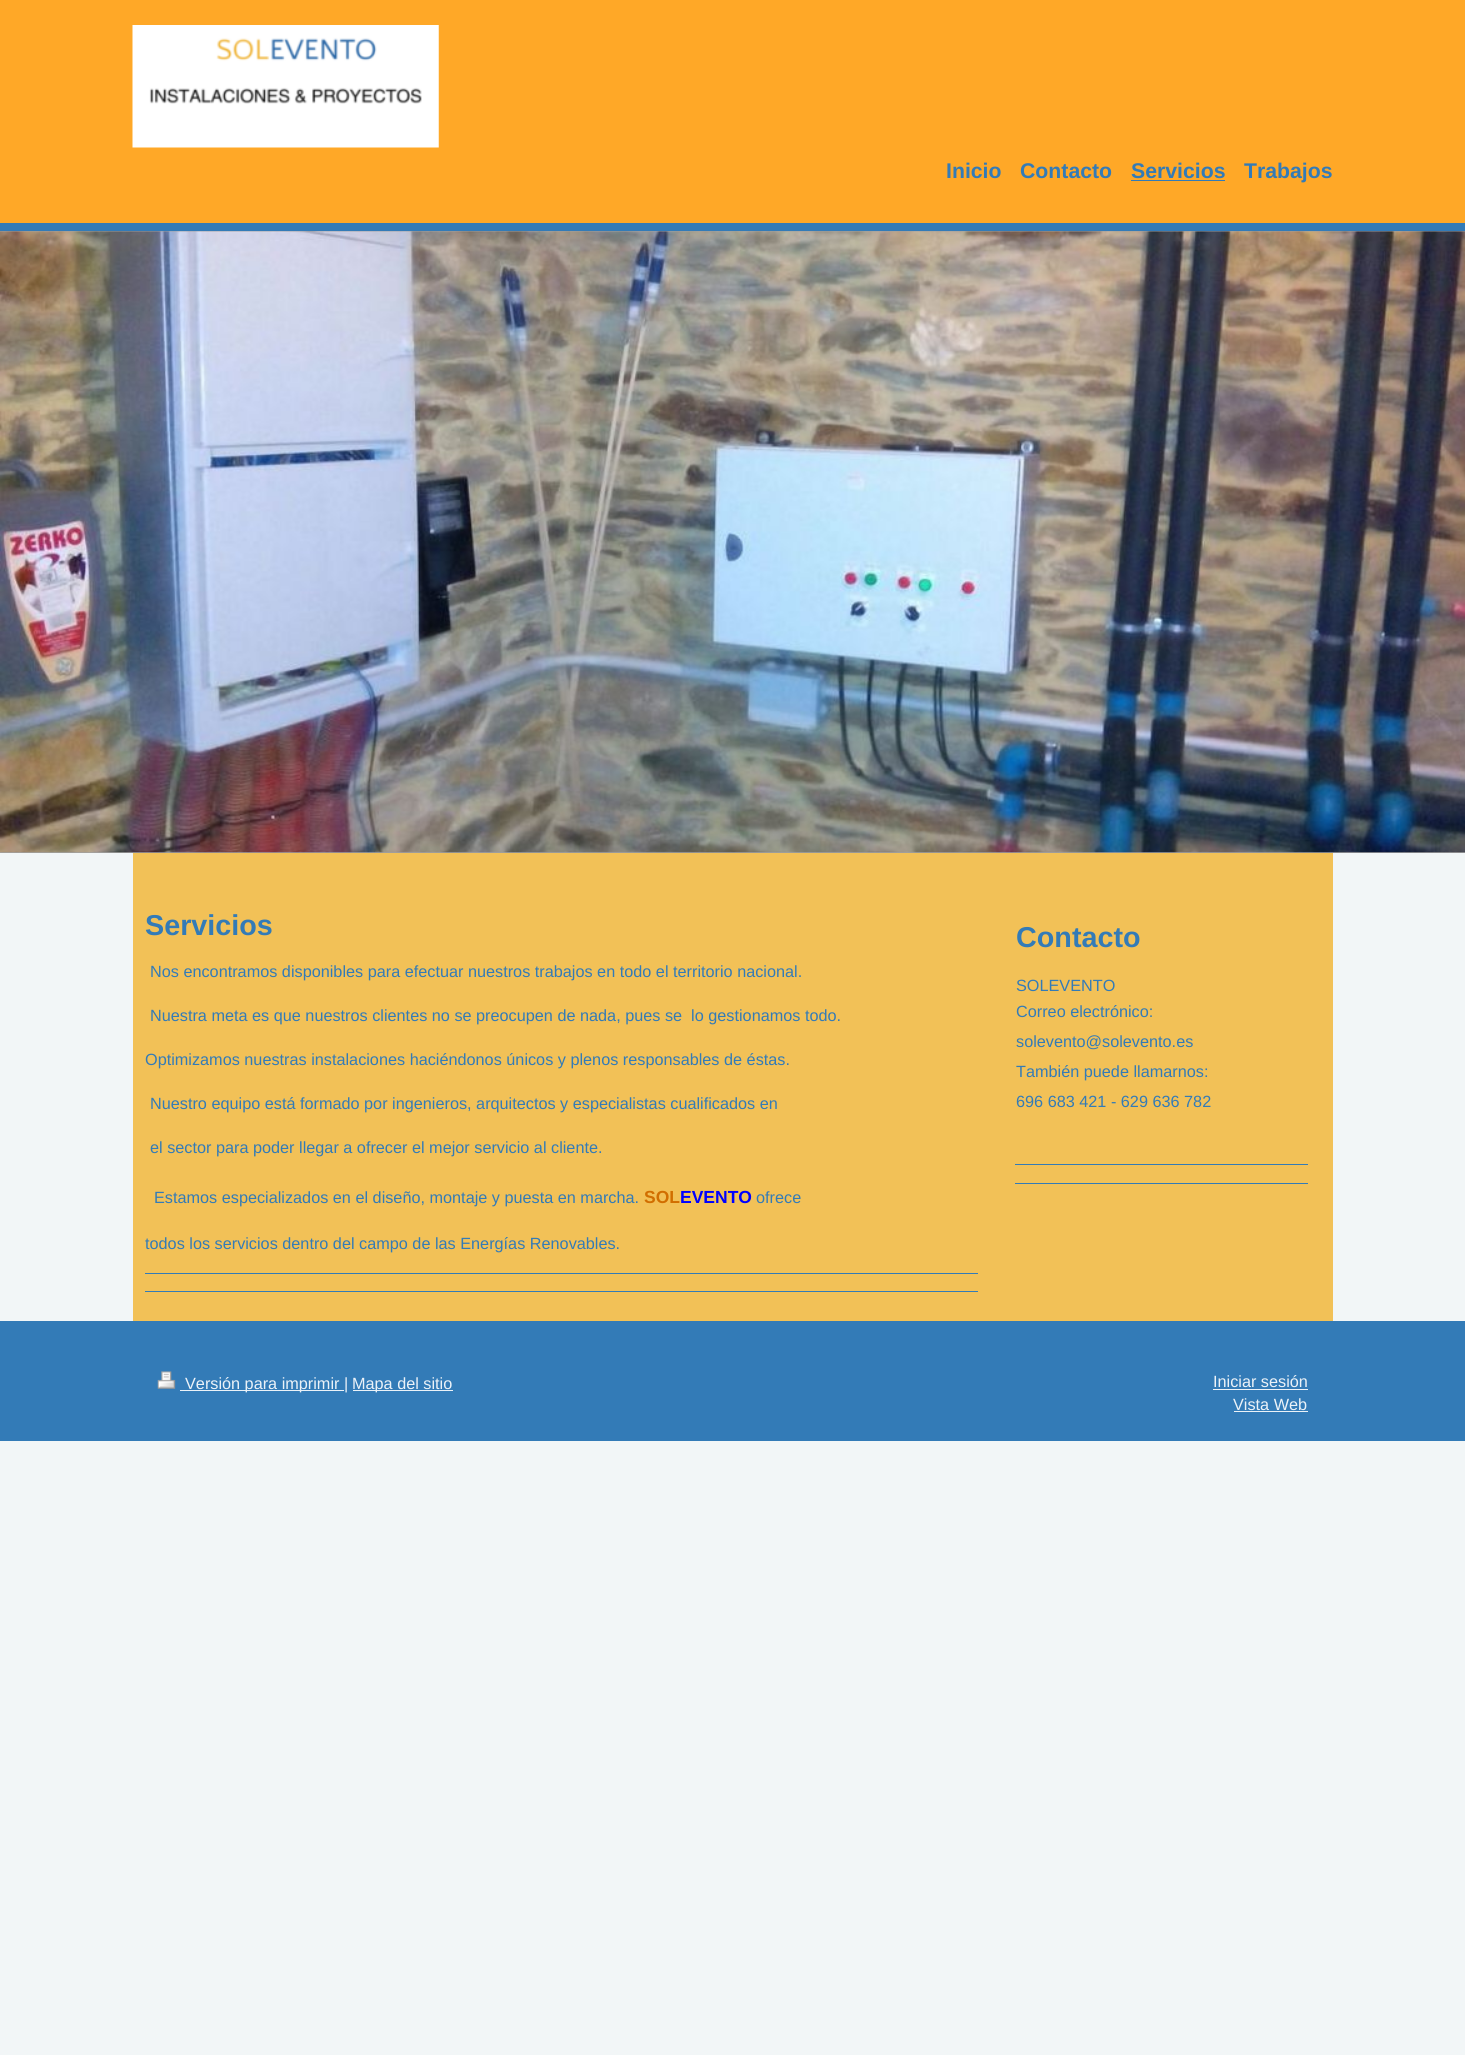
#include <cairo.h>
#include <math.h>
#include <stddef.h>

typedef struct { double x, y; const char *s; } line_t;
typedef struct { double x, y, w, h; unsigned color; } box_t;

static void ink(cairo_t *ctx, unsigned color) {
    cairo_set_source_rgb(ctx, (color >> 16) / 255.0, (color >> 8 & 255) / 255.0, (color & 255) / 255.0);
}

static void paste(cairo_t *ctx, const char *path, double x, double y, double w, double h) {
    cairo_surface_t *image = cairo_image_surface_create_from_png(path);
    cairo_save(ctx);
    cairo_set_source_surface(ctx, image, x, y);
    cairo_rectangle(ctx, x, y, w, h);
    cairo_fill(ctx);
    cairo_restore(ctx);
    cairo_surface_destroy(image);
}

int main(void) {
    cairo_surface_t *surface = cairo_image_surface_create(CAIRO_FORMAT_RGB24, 1465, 2055);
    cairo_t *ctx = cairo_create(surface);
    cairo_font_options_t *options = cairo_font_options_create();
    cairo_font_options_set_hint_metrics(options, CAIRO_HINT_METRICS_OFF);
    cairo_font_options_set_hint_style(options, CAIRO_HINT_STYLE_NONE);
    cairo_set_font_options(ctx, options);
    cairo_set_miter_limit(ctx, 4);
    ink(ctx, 0xF2F6F7);
    cairo_paint(ctx);
    ink(ctx, 0xFFA827);
    cairo_rectangle(ctx, 0, 0, 1465, 223);
    cairo_fill(ctx);
    ink(ctx, 0x337BB7);
    cairo_rectangle(ctx, 0, 223, 1465, 8);
    cairo_fill(ctx);
    paste(ctx, "media/1.png", 132, 25, 307, 123);
    cairo_select_font_face(ctx, "Liberation Sans", CAIRO_FONT_SLANT_NORMAL, CAIRO_FONT_WEIGHT_BOLD);
    cairo_set_font_size(ctx, 21.25);
    {
        static const line_t items[] = {
            {946, 178, "Inicio"},
            {1020, 178, "Contacto"},
            {1131, 178, "Servicios"},
        };
        for (size_t i = 0; i < sizeof items / sizeof *items; i++) {
            cairo_move_to(ctx, items[i].x, items[i].y);
            cairo_show_text(ctx, items[i].s);
        }
    }
    cairo_rectangle(ctx, 1131, 180, 94, 1);
    cairo_fill(ctx);
    cairo_move_to(ctx, 1244, 178);
    cairo_show_text(ctx, "Trabajos");
    ink(ctx, 0xA0A0A0);
    cairo_rectangle(ctx, 0, 231, 1465, 622);
    cairo_fill(ctx);
    paste(ctx, "media/2.png", 0, 231, 1465, 622);
    ink(ctx, 0xF2C157);
    cairo_rectangle(ctx, 133, 853, 1200, 468);
    cairo_fill(ctx);
    cairo_set_font_size(ctx, 28.75);
    ink(ctx, 0x337BB7);
    cairo_move_to(ctx, 145, 935);
    cairo_show_text(ctx, "Servicios");
    cairo_select_font_face(ctx, "Liberation Sans", CAIRO_FONT_SLANT_NORMAL, CAIRO_FONT_WEIGHT_NORMAL);
    cairo_set_font_size(ctx, 16.25);
    {
        static const line_t items[] = {
            {150, 977, "Nos encontramos disponibles para efectuar nuestros trabajos en todo el territorio nacional."},
            {150, 1021, "Nuestra meta es que nuestros clientes no se preocupen de nada, pues se  lo gestionamos todo."},
            {145, 1065, "Optimizamos nuestras instalaciones haciéndonos únicos y plenos responsables de éstas."},
            {150, 1109, "Nuestro equipo está formado por ingenieros, arquitectos y especialistas cualificados en"},
            {150, 1153, "el sector para poder llegar a ofrecer el mejor servicio al cliente."},
            {154, 1203, "Estamos especializados en el diseño, montaje y puesta en marcha."},
        };
        for (size_t i = 0; i < sizeof items / sizeof *items; i++) {
            cairo_move_to(ctx, items[i].x, items[i].y);
            cairo_show_text(ctx, items[i].s);
        }
    }
    cairo_select_font_face(ctx, "Liberation Sans", CAIRO_FONT_SLANT_NORMAL, CAIRO_FONT_WEIGHT_BOLD);
    cairo_set_font_size(ctx, 17.5);
    ink(ctx, 0xD16E00);
    cairo_move_to(ctx, 644, 1203);
    cairo_show_text(ctx, "SOL");
    ink(ctx, 0x0000FF);
    cairo_move_to(ctx, 680, 1203);
    cairo_show_text(ctx, "EVENTO");
    cairo_select_font_face(ctx, "Liberation Sans", CAIRO_FONT_SLANT_NORMAL, CAIRO_FONT_WEIGHT_NORMAL);
    cairo_set_font_size(ctx, 16.25);
    ink(ctx, 0x337BB7);
    cairo_move_to(ctx, 756, 1203);
    cairo_show_text(ctx, "ofrece");
    cairo_move_to(ctx, 145, 1249);
    cairo_show_text(ctx, "todos los servicios dentro del campo de las Energías Renovables.");
    cairo_rectangle(ctx, 145, 1273, 833, 1);
    cairo_fill(ctx);
    cairo_rectangle(ctx, 145, 1291, 833, 1);
    cairo_fill(ctx);
    cairo_select_font_face(ctx, "Liberation Sans", CAIRO_FONT_SLANT_NORMAL, CAIRO_FONT_WEIGHT_BOLD);
    cairo_set_font_size(ctx, 28.75);
    cairo_move_to(ctx, 1016, 947);
    cairo_show_text(ctx, "Contacto");
    cairo_select_font_face(ctx, "Liberation Sans", CAIRO_FONT_SLANT_NORMAL, CAIRO_FONT_WEIGHT_NORMAL);
    cairo_set_font_size(ctx, 16.25);
    {
        static const line_t items[] = {
            {1016, 991, "SOLEVENTO"},
            {1016, 1017, "Correo electrónico:"},
            {1016, 1047, "solevento@solevento.es"},
            {1016, 1077, "También puede llamarnos:"},
            {1016, 1107, "696 683 421 - 629 636 782"},
        };
        for (size_t i = 0; i < sizeof items / sizeof *items; i++) {
            cairo_move_to(ctx, items[i].x, items[i].y);
            cairo_show_text(ctx, items[i].s);
        }
    }
    {
        static const box_t items[] = {
            {1015, 1164, 293, 1, 0x337BB7},
            {1015, 1183, 293, 1, 0x337BB7},
            {0, 1321, 1465, 120, 0x337BB7},
        };
        for (size_t i = 0; i < sizeof items / sizeof *items; i++) {
            ink(ctx, items[i].color);
            cairo_rectangle(ctx, items[i].x, items[i].y, items[i].w, items[i].h);
            cairo_fill(ctx);
        }
    }
    paste(ctx, "media/3.png", 157, 1371, 19, 18);
    ink(ctx, 0xEBF2F8);
    cairo_rectangle(ctx, 180, 1390, 164, 1);
    cairo_fill(ctx);
    cairo_move_to(ctx, 185, 1389);
    cairo_show_text(ctx, "Versión para imprimir |");
    cairo_rectangle(ctx, 353, 1390, 100, 1);
    cairo_fill(ctx);
    cairo_move_to(ctx, 352, 1389);
    cairo_show_text(ctx, "Mapa del sitio");
    cairo_move_to(ctx, 1213, 1387);
    cairo_show_text(ctx, "Iniciar sesión");
    cairo_rectangle(ctx, 1213, 1389, 95, 1);
    cairo_fill(ctx);
    cairo_move_to(ctx, 1233, 1410);
    cairo_show_text(ctx, "Vista Web");
    cairo_rectangle(ctx, 1234, 1411, 74, 1);
    cairo_fill(ctx);
    cairo_surface_write_to_png(surface, "image.png");
    cairo_font_options_destroy(options);
    cairo_destroy(ctx);
    cairo_surface_destroy(surface);
    return 0;
}
